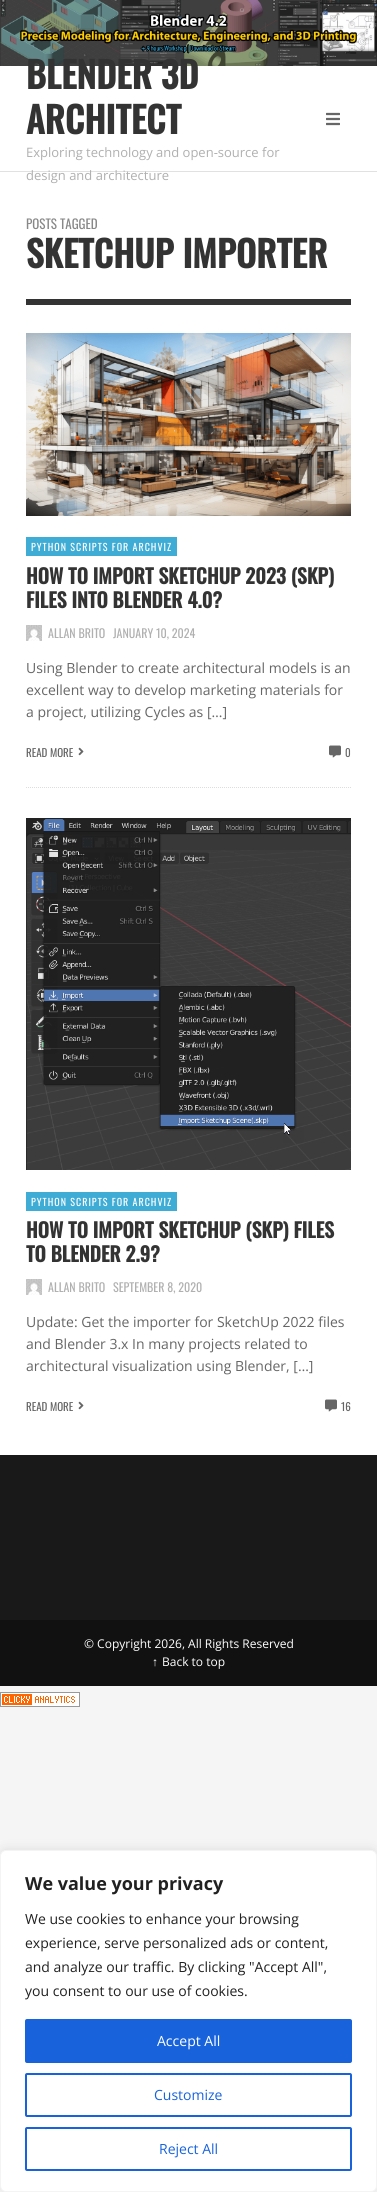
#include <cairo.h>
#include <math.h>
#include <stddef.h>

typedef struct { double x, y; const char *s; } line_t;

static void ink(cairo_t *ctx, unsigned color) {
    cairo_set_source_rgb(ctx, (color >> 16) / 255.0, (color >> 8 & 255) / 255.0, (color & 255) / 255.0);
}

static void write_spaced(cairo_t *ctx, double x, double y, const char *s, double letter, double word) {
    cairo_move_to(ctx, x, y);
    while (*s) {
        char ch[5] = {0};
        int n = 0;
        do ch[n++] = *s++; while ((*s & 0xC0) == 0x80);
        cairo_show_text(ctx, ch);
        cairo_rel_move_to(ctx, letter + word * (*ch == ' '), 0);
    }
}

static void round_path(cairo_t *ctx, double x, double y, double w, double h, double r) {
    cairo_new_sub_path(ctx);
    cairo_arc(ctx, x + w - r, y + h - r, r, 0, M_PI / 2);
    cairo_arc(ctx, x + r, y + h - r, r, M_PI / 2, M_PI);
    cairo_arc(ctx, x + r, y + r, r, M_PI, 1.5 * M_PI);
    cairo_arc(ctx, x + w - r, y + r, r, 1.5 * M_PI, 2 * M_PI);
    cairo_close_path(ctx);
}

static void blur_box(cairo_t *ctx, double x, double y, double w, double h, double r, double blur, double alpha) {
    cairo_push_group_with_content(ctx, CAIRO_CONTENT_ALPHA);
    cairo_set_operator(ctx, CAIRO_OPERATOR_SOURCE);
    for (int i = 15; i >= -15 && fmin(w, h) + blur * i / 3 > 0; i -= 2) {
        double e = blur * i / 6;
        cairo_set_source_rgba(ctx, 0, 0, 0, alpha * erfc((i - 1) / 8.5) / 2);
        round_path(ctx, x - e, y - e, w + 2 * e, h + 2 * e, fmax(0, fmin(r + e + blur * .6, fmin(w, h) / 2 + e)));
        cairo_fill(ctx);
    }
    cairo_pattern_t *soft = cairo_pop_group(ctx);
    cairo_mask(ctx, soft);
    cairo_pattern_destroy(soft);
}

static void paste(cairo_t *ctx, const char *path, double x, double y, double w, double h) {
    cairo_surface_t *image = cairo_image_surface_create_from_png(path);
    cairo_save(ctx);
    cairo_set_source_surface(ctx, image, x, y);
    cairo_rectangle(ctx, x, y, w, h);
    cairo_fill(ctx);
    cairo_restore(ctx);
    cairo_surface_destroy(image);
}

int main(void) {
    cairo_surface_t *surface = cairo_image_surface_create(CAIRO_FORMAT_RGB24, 377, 2192);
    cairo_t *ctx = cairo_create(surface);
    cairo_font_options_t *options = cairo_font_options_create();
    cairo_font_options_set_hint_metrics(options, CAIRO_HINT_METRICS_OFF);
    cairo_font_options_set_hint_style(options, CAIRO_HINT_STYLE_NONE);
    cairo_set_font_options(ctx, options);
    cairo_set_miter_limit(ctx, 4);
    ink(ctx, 0xF5F5F5);
    cairo_paint(ctx);
    ink(ctx, 0xFFFFFF);
    cairo_rectangle(ctx, 0, 66, 377, 1389);
    cairo_fill(ctx);
    paste(ctx, "media/1.png", 0, 0, 377, 66);
    ink(ctx, 0xE1E1E1);
    cairo_rectangle(ctx, 0, 171, 377, 1);
    cairo_fill(ctx);
    cairo_select_font_face(ctx, "Oswald", CAIRO_FONT_SLANT_NORMAL, CAIRO_FONT_WEIGHT_BOLD);
    cairo_set_font_size(ctx, 36);
    ink(ctx, 0x333333);
    cairo_move_to(ctx, 26, 89);
    cairo_show_text(ctx, "BLENDER 3D");
    cairo_move_to(ctx, 26, 134);
    cairo_show_text(ctx, "ARCHITECT");
    cairo_select_font_face(ctx, "Open Sans", CAIRO_FONT_SLANT_NORMAL, CAIRO_FONT_WEIGHT_NORMAL);
    cairo_set_font_size(ctx, 13);
    ink(ctx, 0xB0B0B0);
    cairo_move_to(ctx, 26, 157);
    cairo_show_text(ctx, "Exploring technology and open-source for");
    cairo_move_to(ctx, 26, 180);
    cairo_show_text(ctx, "design and architecture");
    paste(ctx, "media/2.png", 326, 112, 14, 14);
    cairo_select_font_face(ctx, "Oswald", CAIRO_FONT_SLANT_NORMAL, CAIRO_FONT_WEIGHT_NORMAL);
    ink(ctx, 0x888888);
    cairo_move_to(ctx, 26, 229);
    cairo_show_text(ctx, "POSTS TAGGED");
    cairo_select_font_face(ctx, "Oswald", CAIRO_FONT_SLANT_NORMAL, CAIRO_FONT_WEIGHT_BOLD);
    cairo_set_font_size(ctx, 36);
    ink(ctx, 0x333333);
    cairo_move_to(ctx, 26, 268);
    cairo_show_text(ctx, "SKETCHUP IMPORTER");
    cairo_rectangle(ctx, 26, 299, 325, 6);
    cairo_fill(ctx);
    cairo_new_path(ctx);
    cairo_move_to(ctx, 26, 787.5);
    cairo_line_to(ctx, 351, 787.5);
    ink(ctx, 0xDDDDDD);
    cairo_set_line_width(ctx, 1);
    cairo_set_dash(ctx, (double[]){1, 1}, 2, 0);
    cairo_stroke(ctx);
    paste(ctx, "media/3.png", 26, 333, 325, 183);
    ink(ctx, 0x3FACD6);
    cairo_rectangle(ctx, 26, 537, 151, 19);
    cairo_fill(ctx);
    cairo_select_font_face(ctx, "Oswald", CAIRO_FONT_SLANT_NORMAL, CAIRO_FONT_WEIGHT_NORMAL);
    cairo_set_font_size(ctx, 10);
    ink(ctx, 0xFFFFFF);
    write_spaced(ctx, 31, 551, "PYTHON SCRIPTS FOR ARCHVIZ", 1, 0);
    cairo_select_font_face(ctx, "Oswald", CAIRO_FONT_SLANT_NORMAL, CAIRO_FONT_WEIGHT_BOLD);
    cairo_set_font_size(ctx, 20);
    ink(ctx, 0x333333);
    cairo_move_to(ctx, 26, 584);
    cairo_show_text(ctx, "HOW TO IMPORT SKETCHUP 2023 (SKP)");
    cairo_move_to(ctx, 26, 608);
    cairo_show_text(ctx, "FILES INTO BLENDER 4.0?");
    paste(ctx, "media/4.png", 26, 625, 16, 16);
    cairo_select_font_face(ctx, "Oswald", CAIRO_FONT_SLANT_NORMAL, CAIRO_FONT_WEIGHT_NORMAL);
    cairo_set_font_size(ctx, 12);
    ink(ctx, 0xB0B0B0);
    cairo_move_to(ctx, 48, 638);
    cairo_show_text(ctx, "ALLAN BRITO");
    cairo_move_to(ctx, 113, 638);
    cairo_show_text(ctx, "JANUARY 10, 2024");
    cairo_select_font_face(ctx, "Open Sans", CAIRO_FONT_SLANT_NORMAL, CAIRO_FONT_WEIGHT_NORMAL);
    cairo_set_font_size(ctx, 14);
    ink(ctx, 0x666666);
    {
        static const line_t items[] = {
            {26, 673, "Using Blender to create architectural models is an"},
            {26, 695, "excellent way to develop marketing materials for"},
            {26, 717, "a project, utilizing Cycles as […]"},
        };
        for (size_t i = 0; i < sizeof items / sizeof *items; i++) {
            cairo_move_to(ctx, items[i].x, items[i].y);
            cairo_show_text(ctx, items[i].s);
        }
    }
    cairo_select_font_face(ctx, "Oswald", CAIRO_FONT_SLANT_NORMAL, CAIRO_FONT_WEIGHT_NORMAL);
    cairo_set_font_size(ctx, 11);
    cairo_move_to(ctx, 26, 757);
    cairo_show_text(ctx, "READ MORE");
    paste(ctx, "media/5.png", 78, 747, 6, 9);
    paste(ctx, "media/6.png", 329, 745, 12, 13);
    cairo_move_to(ctx, 345, 757);
    cairo_show_text(ctx, "0");
    paste(ctx, "media/7.png", 26, 818, 325, 352);
    ink(ctx, 0x3FACD6);
    cairo_rectangle(ctx, 26, 1192, 151, 19);
    cairo_fill(ctx);
    cairo_set_font_size(ctx, 10);
    ink(ctx, 0xFFFFFF);
    write_spaced(ctx, 31, 1206, "PYTHON SCRIPTS FOR ARCHVIZ", 1, 0);
    cairo_select_font_face(ctx, "Oswald", CAIRO_FONT_SLANT_NORMAL, CAIRO_FONT_WEIGHT_BOLD);
    cairo_set_font_size(ctx, 20);
    ink(ctx, 0x333333);
    cairo_move_to(ctx, 26, 1238);
    cairo_show_text(ctx, "HOW TO IMPORT SKETCHUP (SKP) FILES");
    cairo_move_to(ctx, 26, 1262);
    cairo_show_text(ctx, "TO BLENDER 2.9?");
    paste(ctx, "media/4.png", 26, 1279, 16, 16);
    cairo_select_font_face(ctx, "Oswald", CAIRO_FONT_SLANT_NORMAL, CAIRO_FONT_WEIGHT_NORMAL);
    cairo_set_font_size(ctx, 12);
    ink(ctx, 0xB0B0B0);
    cairo_move_to(ctx, 48, 1292);
    cairo_show_text(ctx, "ALLAN BRITO");
    cairo_move_to(ctx, 113, 1292);
    cairo_show_text(ctx, "SEPTEMBER 8, 2020");
    cairo_select_font_face(ctx, "Open Sans", CAIRO_FONT_SLANT_NORMAL, CAIRO_FONT_WEIGHT_NORMAL);
    cairo_set_font_size(ctx, 14);
    ink(ctx, 0x666666);
    {
        static const line_t items[] = {
            {26, 1327, "Update: Get the importer for SketchUp 2022 files"},
            {26, 1349, "and Blender 3.x In many projects related to"},
            {26, 1371, "architectural visualization using Blender, […]"},
        };
        for (size_t i = 0; i < sizeof items / sizeof *items; i++) {
            cairo_move_to(ctx, items[i].x, items[i].y);
            cairo_show_text(ctx, items[i].s);
        }
    }
    cairo_select_font_face(ctx, "Oswald", CAIRO_FONT_SLANT_NORMAL, CAIRO_FONT_WEIGHT_NORMAL);
    cairo_set_font_size(ctx, 11);
    cairo_move_to(ctx, 26, 1411);
    cairo_show_text(ctx, "READ MORE");
    paste(ctx, "media/5.png", 78, 1401, 6, 9);
    paste(ctx, "media/6.png", 325, 1399, 12, 13);
    cairo_move_to(ctx, 341, 1411);
    cairo_show_text(ctx, "16");
    ink(ctx, 0x191919);
    cairo_rectangle(ctx, 0, 1455, 377, 165);
    cairo_fill(ctx);
    ink(ctx, 0x111111);
    cairo_rectangle(ctx, 0, 1620, 377, 66);
    cairo_fill(ctx);
    cairo_select_font_face(ctx, "Open Sans", CAIRO_FONT_SLANT_NORMAL, CAIRO_FONT_WEIGHT_NORMAL);
    cairo_set_font_size(ctx, 12);
    ink(ctx, 0xFFFFFF);
    cairo_move_to(ctx, 84, 1648);
    cairo_show_text(ctx, "© Copyright 2026, All Rights Reserved");
    cairo_select_font_face(ctx, "Liberation Serif", CAIRO_FONT_SLANT_NORMAL, CAIRO_FONT_WEIGHT_NORMAL);
    cairo_move_to(ctx, 152, 1666);
    cairo_show_text(ctx, "↑");
    cairo_select_font_face(ctx, "Open Sans", CAIRO_FONT_SLANT_NORMAL, CAIRO_FONT_WEIGHT_NORMAL);
    cairo_move_to(ctx, 162, 1666);
    cairo_show_text(ctx, "Back to top");
    paste(ctx, "media/8.png", 0, 1692, 80, 15);
    ink(ctx, 0xACABAB);
    blur_box(ctx, 0, 1849, 377, 342, 6, 5, 0.3);
    ink(ctx, 0xFFFFFF);
    round_path(ctx, 0.5, 1850.5, 376, 341, 5.5);
    cairo_fill_preserve(ctx);
    ink(ctx, 0xF4F4F4);
    cairo_set_dash(ctx, NULL, 0, 0);
    cairo_stroke(ctx);
    cairo_select_font_face(ctx, "Open Sans", CAIRO_FONT_SLANT_NORMAL, CAIRO_FONT_WEIGHT_BOLD);
    cairo_set_font_size(ctx, 18);
    ink(ctx, 0x212121);
    cairo_move_to(ctx, 25, 1890);
    cairo_show_text(ctx, "We value your privacy");
    cairo_select_font_face(ctx, "Open Sans", CAIRO_FONT_SLANT_NORMAL, CAIRO_FONT_WEIGHT_NORMAL);
    cairo_set_font_size(ctx, 14);
    {
        static const line_t items[] = {
            {25, 1924, "We use cookies to enhance your browsing"},
            {25, 1948, "experience, serve personalized ads or content,"},
            {25, 1972, "and analyze our traffic. By clicking \"Accept All\","},
            {25, 1996, "you consent to our use of cookies."},
        };
        for (size_t i = 0; i < sizeof items / sizeof *items; i++) {
            cairo_move_to(ctx, items[i].x, items[i].y);
            cairo_show_text(ctx, items[i].s);
        }
    }
    ink(ctx, 0x1863DC);
    round_path(ctx, 26, 2020, 325, 42, 1);
    cairo_fill_preserve(ctx);
    cairo_set_line_width(ctx, 2);
    cairo_stroke(ctx);
    ink(ctx, 0xFFFFFF);
    cairo_move_to(ctx, 157, 2046);
    cairo_show_text(ctx, "Accept All");
    round_path(ctx, 26, 2074, 325, 42, 1);
    ink(ctx, 0x1863DC);
    cairo_stroke(ctx);
    cairo_move_to(ctx, 154, 2100);
    cairo_show_text(ctx, "Customize");
    round_path(ctx, 26, 2128, 325, 42, 1);
    cairo_stroke(ctx);
    cairo_move_to(ctx, 159, 2154);
    cairo_show_text(ctx, "Reject All");
    cairo_surface_write_to_png(surface, "image.png");
    cairo_font_options_destroy(options);
    cairo_destroy(ctx);
    cairo_surface_destroy(surface);
    return 0;
}
